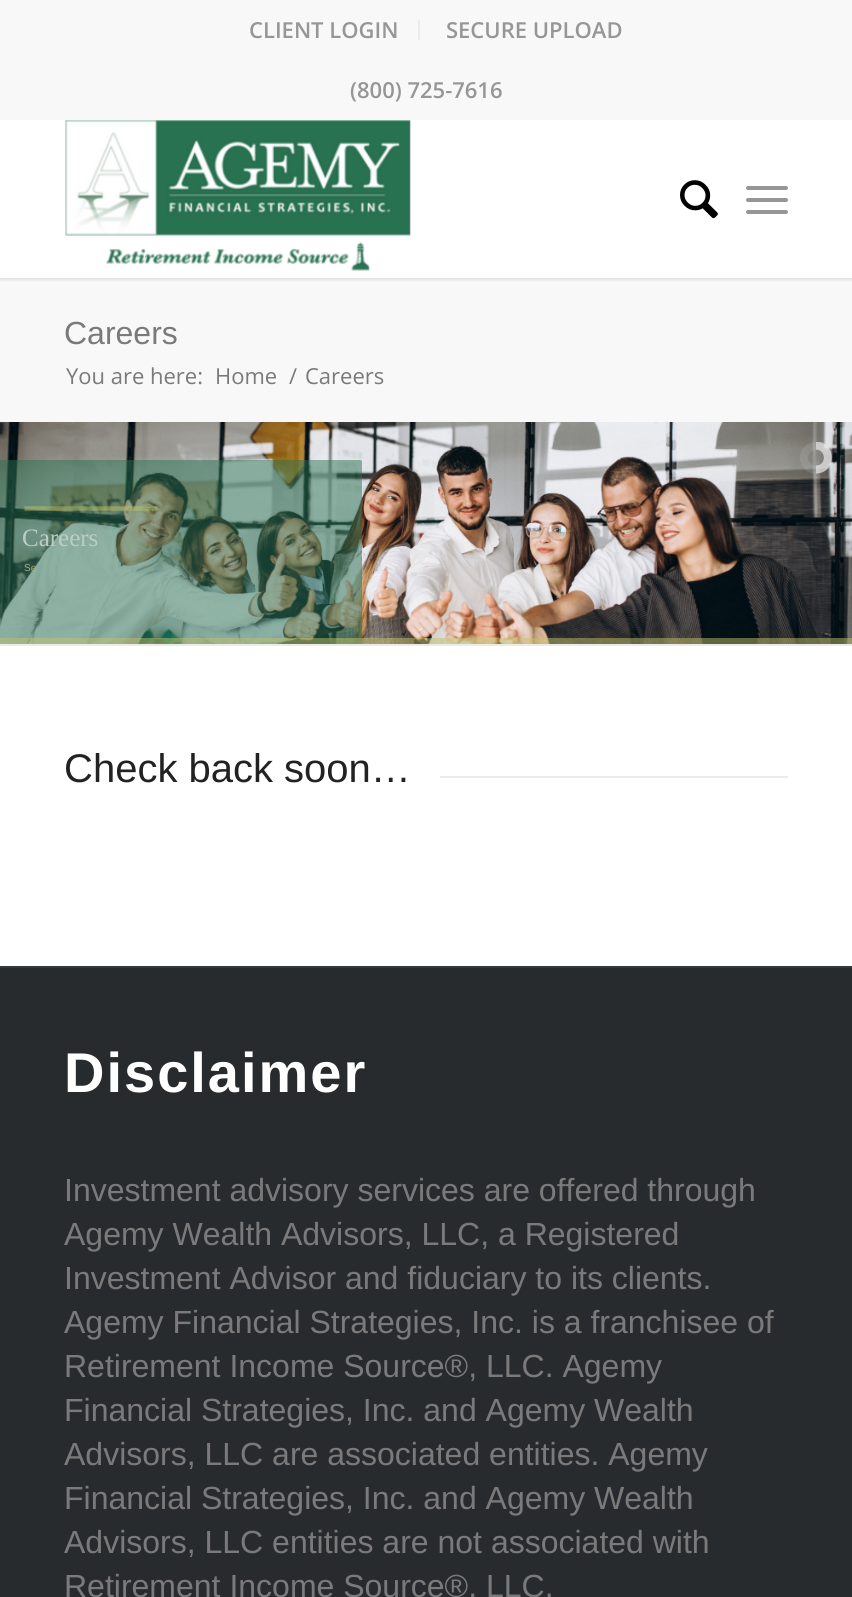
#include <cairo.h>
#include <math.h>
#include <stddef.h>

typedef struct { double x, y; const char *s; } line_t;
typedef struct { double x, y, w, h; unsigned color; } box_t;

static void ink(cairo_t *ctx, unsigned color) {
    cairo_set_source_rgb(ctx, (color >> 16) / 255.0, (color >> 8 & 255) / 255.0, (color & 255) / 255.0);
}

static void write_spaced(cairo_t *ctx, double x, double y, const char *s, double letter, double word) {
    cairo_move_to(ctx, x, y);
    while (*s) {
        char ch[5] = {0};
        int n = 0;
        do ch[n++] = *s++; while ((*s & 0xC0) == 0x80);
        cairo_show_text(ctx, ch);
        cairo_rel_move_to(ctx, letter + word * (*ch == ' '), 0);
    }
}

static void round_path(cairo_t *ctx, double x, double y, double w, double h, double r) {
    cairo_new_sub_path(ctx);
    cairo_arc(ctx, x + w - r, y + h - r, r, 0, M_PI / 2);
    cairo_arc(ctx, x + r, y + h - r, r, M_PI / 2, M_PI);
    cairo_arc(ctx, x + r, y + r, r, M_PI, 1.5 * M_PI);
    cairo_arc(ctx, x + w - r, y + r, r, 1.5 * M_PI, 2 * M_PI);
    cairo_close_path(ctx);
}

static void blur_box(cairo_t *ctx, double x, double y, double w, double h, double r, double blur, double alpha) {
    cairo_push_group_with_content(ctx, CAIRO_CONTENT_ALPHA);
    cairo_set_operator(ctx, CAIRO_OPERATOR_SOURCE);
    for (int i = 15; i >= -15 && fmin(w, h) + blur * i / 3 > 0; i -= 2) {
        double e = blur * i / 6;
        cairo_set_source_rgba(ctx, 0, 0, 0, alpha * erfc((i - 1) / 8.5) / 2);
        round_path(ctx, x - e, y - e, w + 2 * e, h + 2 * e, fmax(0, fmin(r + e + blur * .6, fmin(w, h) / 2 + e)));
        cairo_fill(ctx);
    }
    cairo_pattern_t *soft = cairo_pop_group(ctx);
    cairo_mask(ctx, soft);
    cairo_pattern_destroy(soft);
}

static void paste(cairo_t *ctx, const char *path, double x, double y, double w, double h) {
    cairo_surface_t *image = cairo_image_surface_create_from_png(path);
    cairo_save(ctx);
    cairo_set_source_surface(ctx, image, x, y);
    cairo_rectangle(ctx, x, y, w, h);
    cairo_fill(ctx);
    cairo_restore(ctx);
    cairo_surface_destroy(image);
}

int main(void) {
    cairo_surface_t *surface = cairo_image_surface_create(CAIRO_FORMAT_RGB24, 852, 1597);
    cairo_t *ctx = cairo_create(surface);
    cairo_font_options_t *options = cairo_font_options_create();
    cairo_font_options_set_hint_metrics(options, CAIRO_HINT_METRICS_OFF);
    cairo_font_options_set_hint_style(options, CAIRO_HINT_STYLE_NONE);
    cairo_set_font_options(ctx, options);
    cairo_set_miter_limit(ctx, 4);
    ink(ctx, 0xFFFFFF);
    cairo_paint(ctx);
    ink(ctx, 0xF8F8F8);
    cairo_rectangle(ctx, 0, 278, 852, 144);
    cairo_fill(ctx);
    cairo_save(ctx);
    cairo_rectangle(ctx, 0, 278, 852, 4);
    cairo_clip(ctx);
    ink(ctx, 0x000000);
    blur_box(ctx, -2, -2, 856, 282, 0, 2, 0.1);
    cairo_restore(ctx);
    cairo_rectangle(ctx, 0, 0, 852, 120);
    cairo_fill(ctx);
    ink(ctx, 0xEBEBEB);
    cairo_rectangle(ctx, 418, 20, 2, 20);
    cairo_fill(ctx);
    cairo_select_font_face(ctx, "Open Sans SemiBold", CAIRO_FONT_SLANT_NORMAL, CAIRO_FONT_WEIGHT_NORMAL);
    cairo_set_font_size(ctx, 22);
    ink(ctx, 0x969696);
    {
        static const line_t items[] = {
            {249, 38, "CLIENT LOGIN"},
            {446, 38, "SECURE UPLOAD"},
            {350, 98, "(800) 725-7616"},
        };
        for (size_t i = 0; i < sizeof items / sizeof *items; i++) {
            cairo_move_to(ctx, items[i].x, items[i].y);
            cairo_show_text(ctx, items[i].s);
        }
    }
    paste(ctx, "media/1.png", 65, 120, 346, 151);
    paste(ctx, "media/2.png", 680, 180, 38, 39);
    round_path(ctx, 746, 198, 42, 4, 2);
    cairo_fill(ctx);
    round_path(ctx, 746, 186, 42, 4, 2);
    cairo_fill(ctx);
    round_path(ctx, 746, 210, 42, 4, 2);
    cairo_fill(ctx);
    cairo_select_font_face(ctx, "Liberation Sans", CAIRO_FONT_SLANT_NORMAL, CAIRO_FONT_WEIGHT_NORMAL);
    cairo_set_font_size(ctx, 32);
    ink(ctx, 0x7A7A7A);
    cairo_move_to(ctx, 64, 344);
    cairo_show_text(ctx, "Careers");
    cairo_select_font_face(ctx, "Open Sans", CAIRO_FONT_SLANT_NORMAL, CAIRO_FONT_WEIGHT_NORMAL);
    cairo_set_font_size(ctx, 22);
    {
        static const line_t items[] = {
            {66, 384, "You are here:"},
            {215, 384, "Home"},
            {289, 384, "/"},
            {305, 384, "Careers"},
        };
        for (size_t i = 0; i < sizeof items / sizeof *items; i++) {
            cairo_move_to(ctx, items[i].x, items[i].y);
            cairo_show_text(ctx, items[i].s);
        }
    }
    paste(ctx, "media/3.png", 0, 422, 852, 222);
    cairo_arc(ctx, 816, 458, 12, 0, 2 * M_PI);
    cairo_set_source_rgba(ctx, 0.922, 0.922, 0.922, 0.13);
    cairo_set_line_width(ctx, 8);
    cairo_stroke(ctx);
    cairo_save(ctx);
    cairo_rectangle(ctx, 816, 442, 16, 32);
    cairo_clip(ctx);
    cairo_new_path(ctx);
    cairo_move_to(ctx, 832, 473.5);
    cairo_line_to(ctx, 816, 473.5);
    cairo_line_to(ctx, 816, 441.5);
    cairo_line_to(ctx, 832, 441.5);
    cairo_close_path(ctx);
    cairo_clip(ctx);
    cairo_new_path(ctx);
    cairo_move_to(ctx, 816, 469.5);
    cairo_curve_to(ctx, 800.5, 470, 800, 446, 816, 445.5);
    cairo_curve_to(ctx, 831.5, 445.5, 832, 469.5, 816, 469.5);
    cairo_close_path(ctx);
    cairo_set_source_rgba(ctx, 0.922, 0.922, 0.922, 0.65);
    cairo_stroke(ctx);
    cairo_restore(ctx);
    cairo_set_source_rgba(ctx, 0.157, 0.443, 0.318, 0.49);
    cairo_new_path(ctx);
    cairo_move_to(ctx, -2, 461);
    cairo_curve_to(ctx, -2, 461, -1, 460, 0, 460);
    cairo_line_to(ctx, 360, 460);
    cairo_curve_to(ctx, 361, 460, 362, 461, 362, 461);
    cairo_line_to(ctx, 362, 642);
    cairo_curve_to(ctx, 362, 643, 361, 644, 360, 644);
    cairo_line_to(ctx, 0, 644);
    cairo_curve_to(ctx, -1, 644, -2, 643, -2, 642);
    cairo_close_path(ctx);
    cairo_fill(ctx);
    cairo_new_path(ctx);
    cairo_move_to(ctx, 24.5, 508.5);
    cairo_line_to(ctx, 157.5, 508.5);
    cairo_close_path(ctx);
    cairo_set_source_rgba(ctx, 0.757, 0.761, 0.412, 0.49);
    cairo_set_line_width(ctx, 4.4);
    cairo_stroke(ctx);
    cairo_select_font_face(ctx, "Liberation Serif", CAIRO_FONT_SLANT_NORMAL, CAIRO_FONT_WEIGHT_NORMAL);
    cairo_set_font_size(ctx, 25);
    ink(ctx, 0xBCCDC6);
    cairo_move_to(ctx, 22, 546);
    cairo_show_text(ctx, "Careers");
    cairo_select_font_face(ctx, "Liberation Sans", CAIRO_FONT_SLANT_NORMAL, CAIRO_FONT_WEIGHT_NORMAL);
    cairo_set_font_size(ctx, 10);
    ink(ctx, 0x9DB07E);
    cairo_move_to(ctx, 24, 571);
    cairo_show_text(ctx, "Se");
    cairo_set_source_rgba(ctx, 0.757, 0.761, 0.412, 0.49);
    cairo_new_path(ctx);
    cairo_move_to(ctx, 0, 638);
    cairo_line_to(ctx, 852, 638);
    cairo_line_to(ctx, 852, 644);
    cairo_line_to(ctx, 831, 644);
    cairo_line_to(ctx, 0, 644);
    cairo_close_path(ctx);
    cairo_fill(ctx);
    ink(ctx, 0xEBEBEB);
    cairo_rectangle(ctx, 0, 644, 852, 2);
    cairo_fill(ctx);
    cairo_set_font_size(ctx, 40);
    ink(ctx, 0x222222);
    cairo_move_to(ctx, 64, 782);
    cairo_show_text(ctx, "Check back soon…");
    {
        static const box_t items[] = {
            {440, 776, 348, 2, 0xEBEBEB},
            {0, 968, 852, 629, 0x282B2E},
            {0, 966, 852, 2, 0x35383C},
        };
        for (size_t i = 0; i < sizeof items / sizeof *items; i++) {
            ink(ctx, items[i].color);
            cairo_rectangle(ctx, items[i].x, items[i].y, items[i].w, items[i].h);
            cairo_fill(ctx);
        }
    }
    cairo_select_font_face(ctx, "Liberation Sans", CAIRO_FONT_SLANT_NORMAL, CAIRO_FONT_WEIGHT_BOLD);
    cairo_set_font_size(ctx, 56);
    ink(ctx, 0xFFFFFF);
    write_spaced(ctx, 64, 1092, "Disclaimer", 2, 0);
    cairo_select_font_face(ctx, "Liberation Sans", CAIRO_FONT_SLANT_NORMAL, CAIRO_FONT_WEIGHT_NORMAL);
    cairo_set_font_size(ctx, 32);
    ink(ctx, 0x7A7A7A);
    {
        static const line_t items[] = {
            {64, 1201, "Investment advisory services are offered through"},
            {64, 1245, "Agemy Wealth Advisors, LLC, a Registered"},
            {64, 1289, "Investment Advisor and fiduciary to its clients."},
            {64, 1333, "Agemy Financial Strategies, Inc. is a franchisee of"},
            {64, 1377, "Retirement Income Source®, LLC. Agemy"},
            {64, 1421, "Financial Strategies, Inc. and Agemy Wealth"},
            {64, 1465, "Advisors, LLC are associated entities. Agemy"},
            {64, 1509, "Financial Strategies, Inc. and Agemy Wealth"},
            {64, 1553, "Advisors, LLC entities are not associated with"},
            {64, 1597, "Retirement Income Source®, LLC."},
        };
        for (size_t i = 0; i < sizeof items / sizeof *items; i++) {
            cairo_move_to(ctx, items[i].x, items[i].y);
            cairo_show_text(ctx, items[i].s);
        }
    }
    cairo_surface_write_to_png(surface, "image.png");
    cairo_font_options_destroy(options);
    cairo_destroy(ctx);
    cairo_surface_destroy(surface);
    return 0;
}
